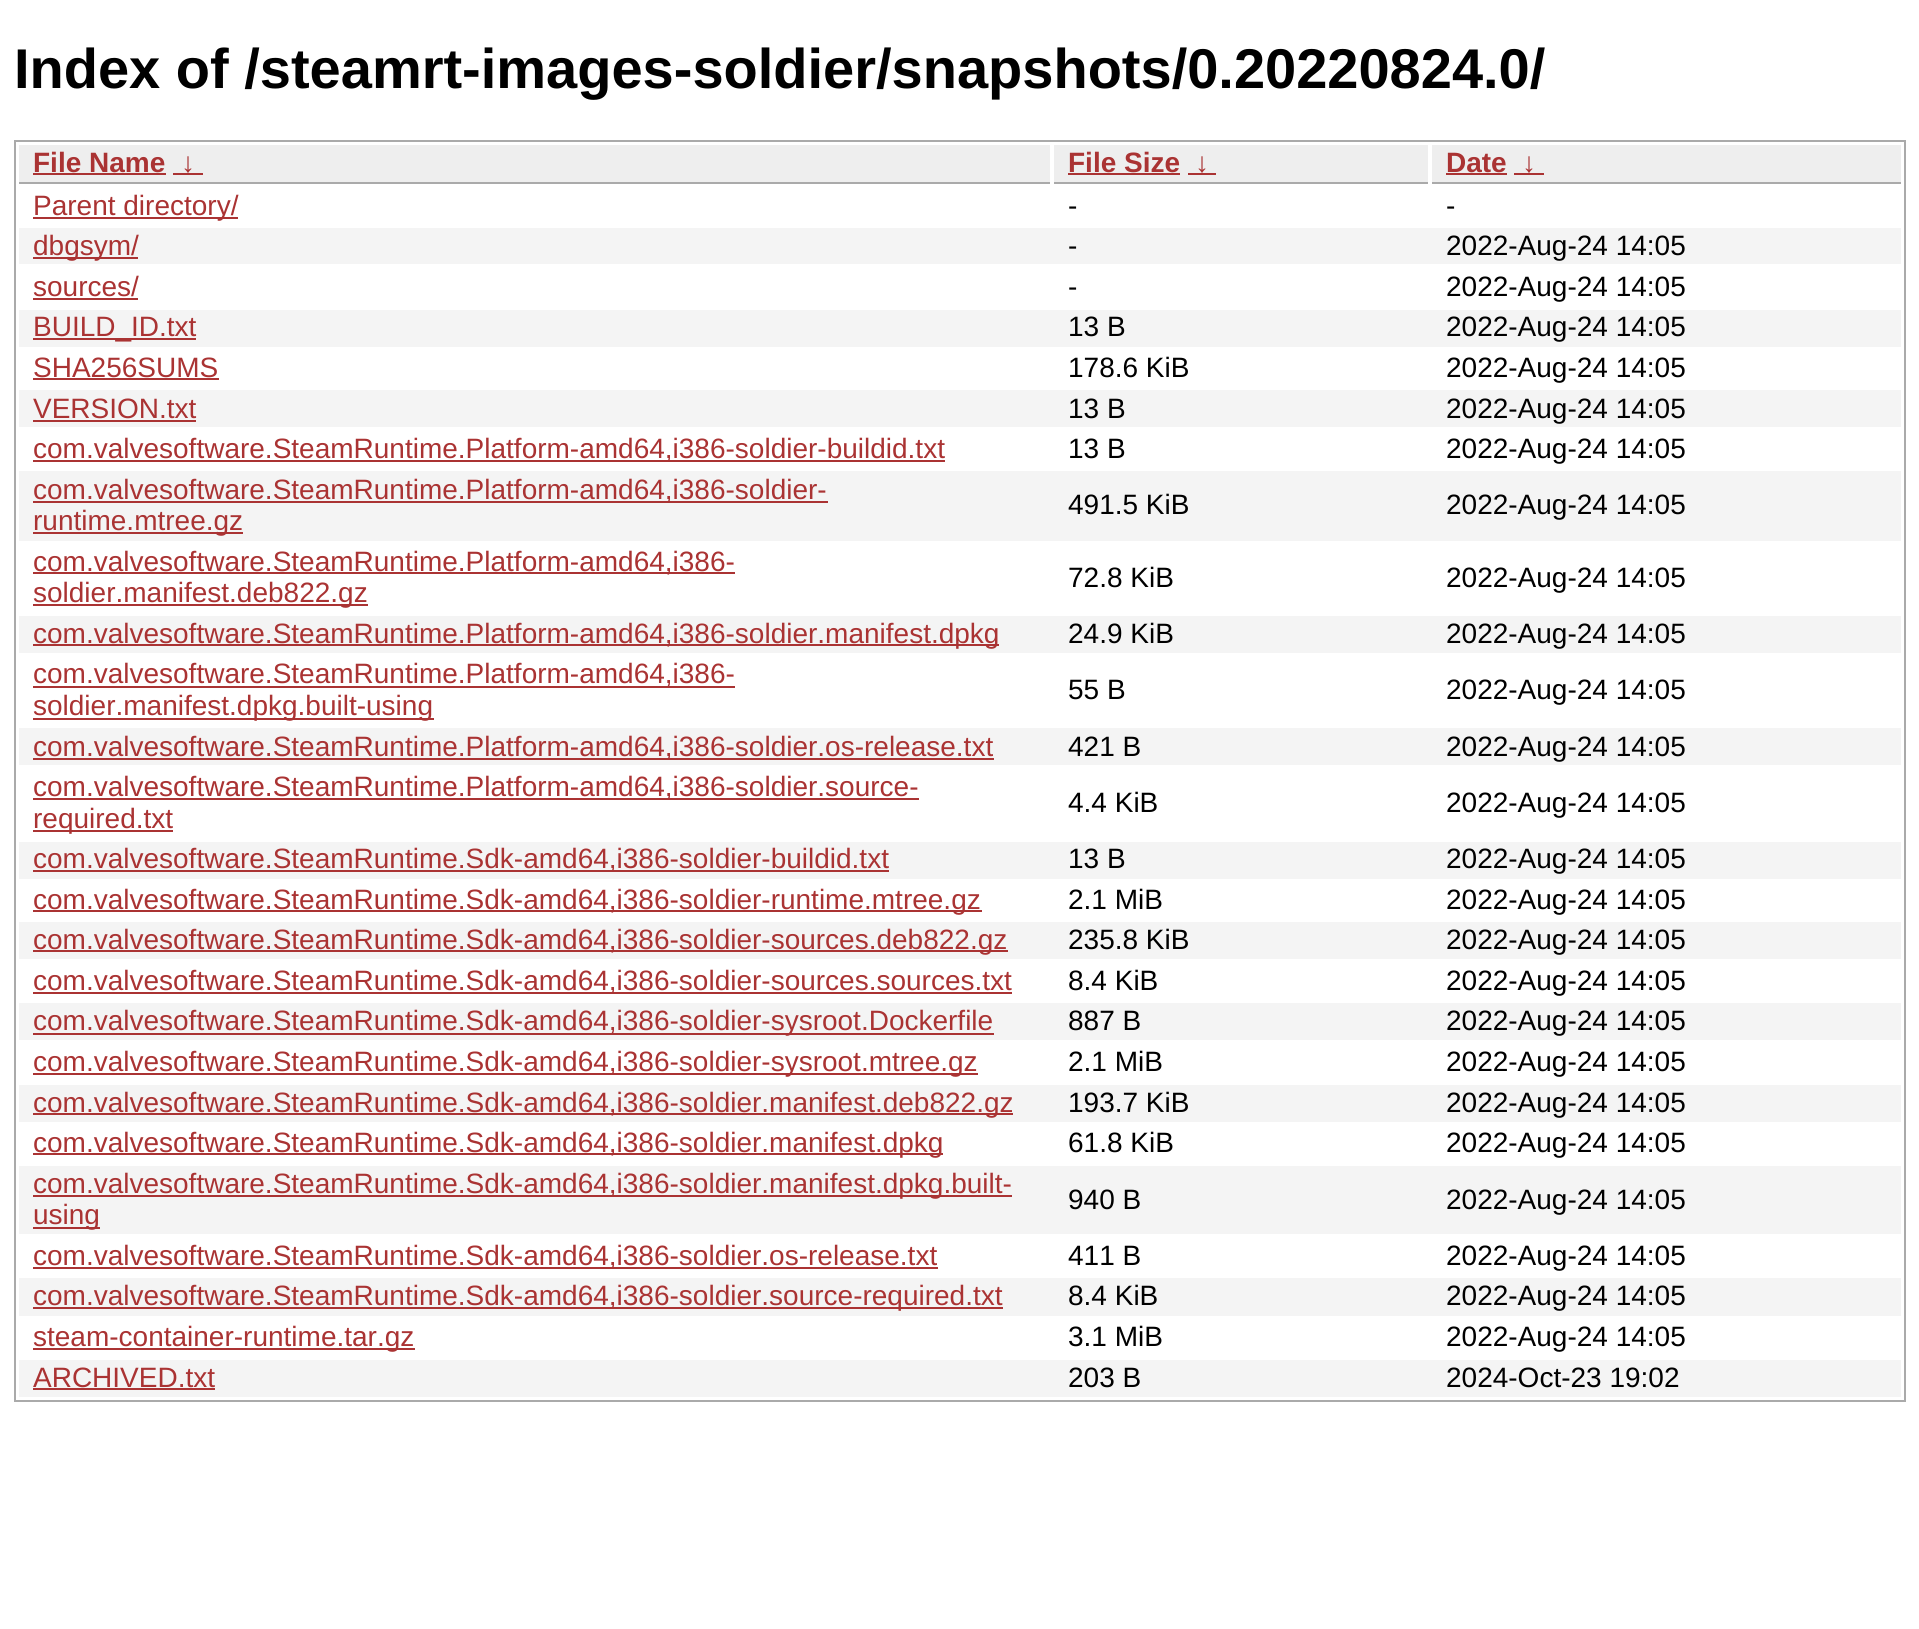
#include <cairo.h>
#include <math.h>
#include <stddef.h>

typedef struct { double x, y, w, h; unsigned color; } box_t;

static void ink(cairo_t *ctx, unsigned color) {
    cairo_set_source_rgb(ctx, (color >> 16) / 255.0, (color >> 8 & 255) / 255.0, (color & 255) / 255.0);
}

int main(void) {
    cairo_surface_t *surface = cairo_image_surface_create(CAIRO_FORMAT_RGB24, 1919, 1629);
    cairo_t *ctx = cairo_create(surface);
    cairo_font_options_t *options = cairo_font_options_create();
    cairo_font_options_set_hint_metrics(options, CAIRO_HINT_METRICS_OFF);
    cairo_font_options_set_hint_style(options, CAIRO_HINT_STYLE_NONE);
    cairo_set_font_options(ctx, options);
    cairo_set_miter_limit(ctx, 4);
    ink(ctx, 0xFFFFFF);
    cairo_paint(ctx);
    cairo_select_font_face(ctx, "Liberation Sans", CAIRO_FONT_SLANT_NORMAL, CAIRO_FONT_WEIGHT_BOLD);
    cairo_set_font_size(ctx, 56);
    ink(ctx, 0x000000);
    cairo_move_to(ctx, 14, 88);
    cairo_show_text(ctx, "Index of /steamrt-images-soldier/snapshots/0.20220824.0/");
    cairo_rectangle(ctx, 15, 141, 1890, 1260);
    ink(ctx, 0xAAAAAA);
    cairo_stroke(ctx);
    ink(ctx, 0xEEEEEE);
    cairo_rectangle(ctx, 19, 145, 1031, 37);
    cairo_fill(ctx);
    ink(ctx, 0xAAAAAA);
    cairo_rectangle(ctx, 19, 182, 1031, 2);
    cairo_fill(ctx);
    cairo_set_font_size(ctx, 28);
    ink(ctx, 0xAA3333);
    cairo_move_to(ctx, 33, 172);
    cairo_show_text(ctx, "File Name");
    cairo_rectangle(ctx, 33, 173, 133, 2);
    cairo_fill(ctx);
    cairo_move_to(ctx, 181, 172);
    cairo_show_text(ctx, "↓");
    {
        static const box_t items[] = {
            {173, 173, 30, 2, 0xAA3333},
            {1054, 145, 374, 37, 0xEEEEEE},
            {1054, 182, 374, 2, 0xAAAAAA},
        };
        for (size_t i = 0; i < sizeof items / sizeof *items; i++) {
            ink(ctx, items[i].color);
            cairo_rectangle(ctx, items[i].x, items[i].y, items[i].w, items[i].h);
            cairo_fill(ctx);
        }
    }
    ink(ctx, 0xAA3333);
    cairo_move_to(ctx, 1068, 172);
    cairo_show_text(ctx, "File Size");
    cairo_rectangle(ctx, 1068, 173, 112, 2);
    cairo_fill(ctx);
    cairo_move_to(ctx, 1195, 172);
    cairo_show_text(ctx, "↓");
    {
        static const box_t items[] = {
            {1188, 173, 28, 2, 0xAA3333},
            {1432, 145, 469, 37, 0xEEEEEE},
            {1432, 182, 469, 2, 0xAAAAAA},
        };
        for (size_t i = 0; i < sizeof items / sizeof *items; i++) {
            ink(ctx, items[i].color);
            cairo_rectangle(ctx, items[i].x, items[i].y, items[i].w, items[i].h);
            cairo_fill(ctx);
        }
    }
    ink(ctx, 0xAA3333);
    cairo_move_to(ctx, 1446, 172);
    cairo_show_text(ctx, "Date");
    cairo_rectangle(ctx, 1446, 173, 61, 2);
    cairo_fill(ctx);
    cairo_move_to(ctx, 1522, 172);
    cairo_show_text(ctx, "↓");
    cairo_rectangle(ctx, 1514, 173, 30, 2);
    cairo_fill(ctx);
    cairo_rectangle(ctx, 33, 217, 205, 2);
    cairo_fill(ctx);
    cairo_select_font_face(ctx, "Liberation Sans", CAIRO_FONT_SLANT_NORMAL, CAIRO_FONT_WEIGHT_NORMAL);
    cairo_move_to(ctx, 33, 215);
    cairo_show_text(ctx, "Parent directory/");
    ink(ctx, 0x000000);
    cairo_move_to(ctx, 1068, 215);
    cairo_show_text(ctx, "-");
    cairo_move_to(ctx, 1446, 215);
    cairo_show_text(ctx, "-");
    ink(ctx, 0xF4F4F4);
    cairo_rectangle(ctx, 19, 228, 1882, 36);
    cairo_fill(ctx);
    ink(ctx, 0xAA3333);
    cairo_rectangle(ctx, 33, 257, 105, 2);
    cairo_fill(ctx);
    cairo_move_to(ctx, 33, 255);
    cairo_show_text(ctx, "dbgsym/");
    ink(ctx, 0x000000);
    cairo_move_to(ctx, 1068, 255);
    cairo_show_text(ctx, "-");
    cairo_move_to(ctx, 1446, 255);
    cairo_show_text(ctx, "2022-Aug-24 14:05");
    ink(ctx, 0xAA3333);
    cairo_move_to(ctx, 33, 296);
    cairo_show_text(ctx, "sources/");
    cairo_rectangle(ctx, 33, 298, 105, 2);
    cairo_fill(ctx);
    ink(ctx, 0x000000);
    cairo_move_to(ctx, 1068, 296);
    cairo_show_text(ctx, "-");
    cairo_move_to(ctx, 1446, 296);
    cairo_show_text(ctx, "2022-Aug-24 14:05");
    ink(ctx, 0xF4F4F4);
    cairo_rectangle(ctx, 19, 310, 1882, 37);
    cairo_fill(ctx);
    ink(ctx, 0xAA3333);
    cairo_rectangle(ctx, 33, 338, 163, 2);
    cairo_fill(ctx);
    cairo_move_to(ctx, 33, 336);
    cairo_show_text(ctx, "BUILD_ID.txt");
    ink(ctx, 0x000000);
    cairo_move_to(ctx, 1068, 336);
    cairo_show_text(ctx, "13 B");
    cairo_move_to(ctx, 1446, 336);
    cairo_show_text(ctx, "2022-Aug-24 14:05");
    ink(ctx, 0xAA3333);
    cairo_move_to(ctx, 33, 377);
    cairo_show_text(ctx, "SHA256SUMS");
    cairo_rectangle(ctx, 33, 378, 186, 2);
    cairo_fill(ctx);
    ink(ctx, 0x000000);
    cairo_move_to(ctx, 1068, 377);
    cairo_show_text(ctx, "178.6 KiB");
    cairo_move_to(ctx, 1446, 377);
    cairo_show_text(ctx, "2022-Aug-24 14:05");
    ink(ctx, 0xF4F4F4);
    cairo_rectangle(ctx, 19, 390, 1882, 37);
    cairo_fill(ctx);
    ink(ctx, 0xAA3333);
    cairo_move_to(ctx, 33, 418);
    cairo_show_text(ctx, "VERSION.txt");
    cairo_rectangle(ctx, 33, 420, 163, 2);
    cairo_fill(ctx);
    ink(ctx, 0x000000);
    cairo_move_to(ctx, 1068, 418);
    cairo_show_text(ctx, "13 B");
    cairo_move_to(ctx, 1446, 418);
    cairo_show_text(ctx, "2022-Aug-24 14:05");
    ink(ctx, 0xAA3333);
    cairo_rectangle(ctx, 33, 460, 912, 2);
    cairo_fill(ctx);
    cairo_move_to(ctx, 33, 458);
    cairo_show_text(ctx, "com.valvesoftware.SteamRuntime.Platform-amd64,i386-soldier-buildid.txt");
    ink(ctx, 0x000000);
    cairo_move_to(ctx, 1068, 458);
    cairo_show_text(ctx, "13 B");
    cairo_move_to(ctx, 1446, 458);
    cairo_show_text(ctx, "2022-Aug-24 14:05");
    ink(ctx, 0xF4F4F4);
    cairo_rectangle(ctx, 19, 471, 1882, 70);
    cairo_fill(ctx);
    ink(ctx, 0xAA3333);
    cairo_rectangle(ctx, 33, 501, 795, 2);
    cairo_fill(ctx);
    cairo_move_to(ctx, 33, 499);
    cairo_show_text(ctx, "com.valvesoftware.SteamRuntime.Platform-amd64,i386-soldier-");
    cairo_rectangle(ctx, 33, 532, 210, 2);
    cairo_fill(ctx);
    cairo_move_to(ctx, 33, 530);
    cairo_show_text(ctx, "runtime.mtree.gz");
    ink(ctx, 0x000000);
    cairo_move_to(ctx, 1068, 514);
    cairo_show_text(ctx, "491.5 KiB");
    cairo_move_to(ctx, 1446, 514);
    cairo_show_text(ctx, "2022-Aug-24 14:05");
    ink(ctx, 0xAA3333);
    cairo_rectangle(ctx, 33, 572, 702, 2);
    cairo_fill(ctx);
    cairo_move_to(ctx, 33, 571);
    cairo_show_text(ctx, "com.valvesoftware.SteamRuntime.Platform-amd64,i386-");
    cairo_rectangle(ctx, 33, 604, 335, 2);
    cairo_fill(ctx);
    cairo_move_to(ctx, 33, 602);
    cairo_show_text(ctx, "soldier.manifest.deb822.gz");
    ink(ctx, 0x000000);
    cairo_move_to(ctx, 1068, 587);
    cairo_show_text(ctx, "72.8 KiB");
    cairo_move_to(ctx, 1446, 587);
    cairo_show_text(ctx, "2022-Aug-24 14:05");
    ink(ctx, 0xF4F4F4);
    cairo_rectangle(ctx, 19, 616, 1882, 37);
    cairo_fill(ctx);
    ink(ctx, 0xAA3333);
    cairo_rectangle(ctx, 33, 644, 966, 2);
    cairo_fill(ctx);
    cairo_move_to(ctx, 33, 643);
    cairo_show_text(ctx, "com.valvesoftware.SteamRuntime.Platform-amd64,i386-soldier.manifest.dpkg");
    ink(ctx, 0x000000);
    cairo_move_to(ctx, 1068, 643);
    cairo_show_text(ctx, "24.9 KiB");
    cairo_move_to(ctx, 1446, 643);
    cairo_show_text(ctx, "2022-Aug-24 14:05");
    ink(ctx, 0xAA3333);
    cairo_rectangle(ctx, 33, 686, 702, 2);
    cairo_fill(ctx);
    cairo_move_to(ctx, 33, 683);
    cairo_show_text(ctx, "com.valvesoftware.SteamRuntime.Platform-amd64,i386-");
    cairo_rectangle(ctx, 33, 718, 401, 2);
    cairo_fill(ctx);
    cairo_move_to(ctx, 33, 715);
    cairo_show_text(ctx, "soldier.manifest.dpkg.built-using");
    ink(ctx, 0x000000);
    cairo_move_to(ctx, 1068, 699);
    cairo_show_text(ctx, "55 B");
    cairo_move_to(ctx, 1446, 699);
    cairo_show_text(ctx, "2022-Aug-24 14:05");
    ink(ctx, 0xF4F4F4);
    cairo_rectangle(ctx, 19, 728, 1882, 37);
    cairo_fill(ctx);
    ink(ctx, 0xAA3333);
    cairo_rectangle(ctx, 33, 758, 961, 2);
    cairo_fill(ctx);
    cairo_move_to(ctx, 33, 756);
    cairo_show_text(ctx, "com.valvesoftware.SteamRuntime.Platform-amd64,i386-soldier.os-release.txt");
    ink(ctx, 0x000000);
    cairo_move_to(ctx, 1068, 756);
    cairo_show_text(ctx, "421 B");
    cairo_move_to(ctx, 1446, 756);
    cairo_show_text(ctx, "2022-Aug-24 14:05");
    ink(ctx, 0xAA3333);
    cairo_rectangle(ctx, 33, 798, 886, 2);
    cairo_fill(ctx);
    cairo_move_to(ctx, 33, 796);
    cairo_show_text(ctx, "com.valvesoftware.SteamRuntime.Platform-amd64,i386-soldier.source-");
    cairo_rectangle(ctx, 33, 830, 140, 2);
    cairo_fill(ctx);
    cairo_move_to(ctx, 33, 828);
    cairo_show_text(ctx, "required.txt");
    ink(ctx, 0x000000);
    cairo_move_to(ctx, 1068, 812);
    cairo_show_text(ctx, "4.4 KiB");
    cairo_move_to(ctx, 1446, 812);
    cairo_show_text(ctx, "2022-Aug-24 14:05");
    ink(ctx, 0xF4F4F4);
    cairo_rectangle(ctx, 19, 842, 1882, 37);
    cairo_fill(ctx);
    ink(ctx, 0xAA3333);
    cairo_rectangle(ctx, 33, 870, 856, 2);
    cairo_fill(ctx);
    cairo_move_to(ctx, 33, 868);
    cairo_show_text(ctx, "com.valvesoftware.SteamRuntime.Sdk-amd64,i386-soldier-buildid.txt");
    ink(ctx, 0x000000);
    cairo_move_to(ctx, 1068, 868);
    cairo_show_text(ctx, "13 B");
    cairo_move_to(ctx, 1446, 868);
    cairo_show_text(ctx, "2022-Aug-24 14:05");
    ink(ctx, 0xAA3333);
    cairo_rectangle(ctx, 33, 910, 949, 2);
    cairo_fill(ctx);
    cairo_move_to(ctx, 33, 909);
    cairo_show_text(ctx, "com.valvesoftware.SteamRuntime.Sdk-amd64,i386-soldier-runtime.mtree.gz");
    ink(ctx, 0x000000);
    cairo_move_to(ctx, 1068, 909);
    cairo_show_text(ctx, "2.1 MiB");
    cairo_move_to(ctx, 1446, 909);
    cairo_show_text(ctx, "2022-Aug-24 14:05");
    ink(ctx, 0xF4F4F4);
    cairo_rectangle(ctx, 19, 922, 1882, 37);
    cairo_fill(ctx);
    ink(ctx, 0xAA3333);
    cairo_rectangle(ctx, 33, 950, 975, 2);
    cairo_fill(ctx);
    cairo_move_to(ctx, 33, 949);
    cairo_show_text(ctx, "com.valvesoftware.SteamRuntime.Sdk-amd64,i386-soldier-sources.deb822.gz");
    ink(ctx, 0x000000);
    cairo_move_to(ctx, 1068, 949);
    cairo_show_text(ctx, "235.8 KiB");
    cairo_move_to(ctx, 1446, 949);
    cairo_show_text(ctx, "2022-Aug-24 14:05");
    ink(ctx, 0xAA3333);
    cairo_rectangle(ctx, 33, 992, 979, 2);
    cairo_fill(ctx);
    cairo_move_to(ctx, 33, 990);
    cairo_show_text(ctx, "com.valvesoftware.SteamRuntime.Sdk-amd64,i386-soldier-sources.sources.txt");
    ink(ctx, 0x000000);
    cairo_move_to(ctx, 1068, 990);
    cairo_show_text(ctx, "8.4 KiB");
    cairo_move_to(ctx, 1446, 990);
    cairo_show_text(ctx, "2022-Aug-24 14:05");
    ink(ctx, 0xF4F4F4);
    cairo_rectangle(ctx, 19, 1003, 1882, 37);
    cairo_fill(ctx);
    ink(ctx, 0xAA3333);
    cairo_rectangle(ctx, 33, 1033, 961, 2);
    cairo_fill(ctx);
    cairo_move_to(ctx, 33, 1030);
    cairo_show_text(ctx, "com.valvesoftware.SteamRuntime.Sdk-amd64,i386-soldier-sysroot.Dockerfile");
    ink(ctx, 0x000000);
    cairo_move_to(ctx, 1068, 1030);
    cairo_show_text(ctx, "887 B");
    cairo_move_to(ctx, 1446, 1030);
    cairo_show_text(ctx, "2022-Aug-24 14:05");
    ink(ctx, 0xAA3333);
    cairo_rectangle(ctx, 33, 1073, 945, 2);
    cairo_fill(ctx);
    cairo_move_to(ctx, 33, 1071);
    cairo_show_text(ctx, "com.valvesoftware.SteamRuntime.Sdk-amd64,i386-soldier-sysroot.mtree.gz");
    ink(ctx, 0x000000);
    cairo_move_to(ctx, 1068, 1071);
    cairo_show_text(ctx, "2.1 MiB");
    cairo_move_to(ctx, 1446, 1071);
    cairo_show_text(ctx, "2022-Aug-24 14:05");
    ink(ctx, 0xF4F4F4);
    cairo_rectangle(ctx, 19, 1085, 1882, 37);
    cairo_fill(ctx);
    ink(ctx, 0xAA3333);
    cairo_rectangle(ctx, 33, 1113, 980, 2);
    cairo_fill(ctx);
    cairo_move_to(ctx, 33, 1112);
    cairo_show_text(ctx, "com.valvesoftware.SteamRuntime.Sdk-amd64,i386-soldier.manifest.deb822.gz");
    ink(ctx, 0x000000);
    cairo_move_to(ctx, 1068, 1112);
    cairo_show_text(ctx, "193.7 KiB");
    cairo_move_to(ctx, 1446, 1112);
    cairo_show_text(ctx, "2022-Aug-24 14:05");
    ink(ctx, 0xAA3333);
    cairo_rectangle(ctx, 33, 1153, 910, 2);
    cairo_fill(ctx);
    cairo_move_to(ctx, 33, 1152);
    cairo_show_text(ctx, "com.valvesoftware.SteamRuntime.Sdk-amd64,i386-soldier.manifest.dpkg");
    ink(ctx, 0x000000);
    cairo_move_to(ctx, 1068, 1152);
    cairo_show_text(ctx, "61.8 KiB");
    cairo_move_to(ctx, 1446, 1152);
    cairo_show_text(ctx, "2022-Aug-24 14:05");
    ink(ctx, 0xF4F4F4);
    cairo_rectangle(ctx, 19, 1166, 1882, 68);
    cairo_fill(ctx);
    ink(ctx, 0xAA3333);
    cairo_rectangle(ctx, 33, 1195, 979, 2);
    cairo_fill(ctx);
    cairo_move_to(ctx, 33, 1193);
    cairo_show_text(ctx, "com.valvesoftware.SteamRuntime.Sdk-amd64,i386-soldier.manifest.dpkg.built-");
    cairo_rectangle(ctx, 33, 1227, 67, 2);
    cairo_fill(ctx);
    cairo_move_to(ctx, 33, 1224);
    cairo_show_text(ctx, "using");
    ink(ctx, 0x000000);
    cairo_move_to(ctx, 1068, 1209);
    cairo_show_text(ctx, "940 B");
    cairo_move_to(ctx, 1446, 1209);
    cairo_show_text(ctx, "2022-Aug-24 14:05");
    ink(ctx, 0xAA3333);
    cairo_rectangle(ctx, 33, 1267, 905, 2);
    cairo_fill(ctx);
    cairo_move_to(ctx, 33, 1265);
    cairo_show_text(ctx, "com.valvesoftware.SteamRuntime.Sdk-amd64,i386-soldier.os-release.txt");
    ink(ctx, 0x000000);
    cairo_move_to(ctx, 1068, 1265);
    cairo_show_text(ctx, "411 B");
    cairo_move_to(ctx, 1446, 1265);
    cairo_show_text(ctx, "2022-Aug-24 14:05");
    ink(ctx, 0xF4F4F4);
    cairo_rectangle(ctx, 19, 1278, 1882, 38);
    cairo_fill(ctx);
    ink(ctx, 0xAA3333);
    cairo_rectangle(ctx, 33, 1307, 970, 2);
    cairo_fill(ctx);
    cairo_move_to(ctx, 33, 1305);
    cairo_show_text(ctx, "com.valvesoftware.SteamRuntime.Sdk-amd64,i386-soldier.source-required.txt");
    ink(ctx, 0x000000);
    cairo_move_to(ctx, 1068, 1305);
    cairo_show_text(ctx, "8.4 KiB");
    cairo_move_to(ctx, 1446, 1305);
    cairo_show_text(ctx, "2022-Aug-24 14:05");
    ink(ctx, 0xAA3333);
    cairo_rectangle(ctx, 33, 1348, 382, 2);
    cairo_fill(ctx);
    cairo_move_to(ctx, 33, 1346);
    cairo_show_text(ctx, "steam-container-runtime.tar.gz");
    ink(ctx, 0x000000);
    cairo_move_to(ctx, 1068, 1346);
    cairo_show_text(ctx, "3.1 MiB");
    cairo_move_to(ctx, 1446, 1346);
    cairo_show_text(ctx, "2022-Aug-24 14:05");
    ink(ctx, 0xF4F4F4);
    cairo_rectangle(ctx, 19, 1360, 1882, 37);
    cairo_fill(ctx);
    ink(ctx, 0xAA3333);
    cairo_move_to(ctx, 33, 1387);
    cairo_show_text(ctx, "ARCHIVED.txt");
    cairo_rectangle(ctx, 33, 1388, 182, 2);
    cairo_fill(ctx);
    ink(ctx, 0x000000);
    cairo_move_to(ctx, 1068, 1387);
    cairo_show_text(ctx, "203 B");
    cairo_move_to(ctx, 1446, 1387);
    cairo_show_text(ctx, "2024-Oct-23 19:02");
    cairo_surface_write_to_png(surface, "image.png");
    cairo_font_options_destroy(options);
    cairo_destroy(ctx);
    cairo_surface_destroy(surface);
    return 0;
}
